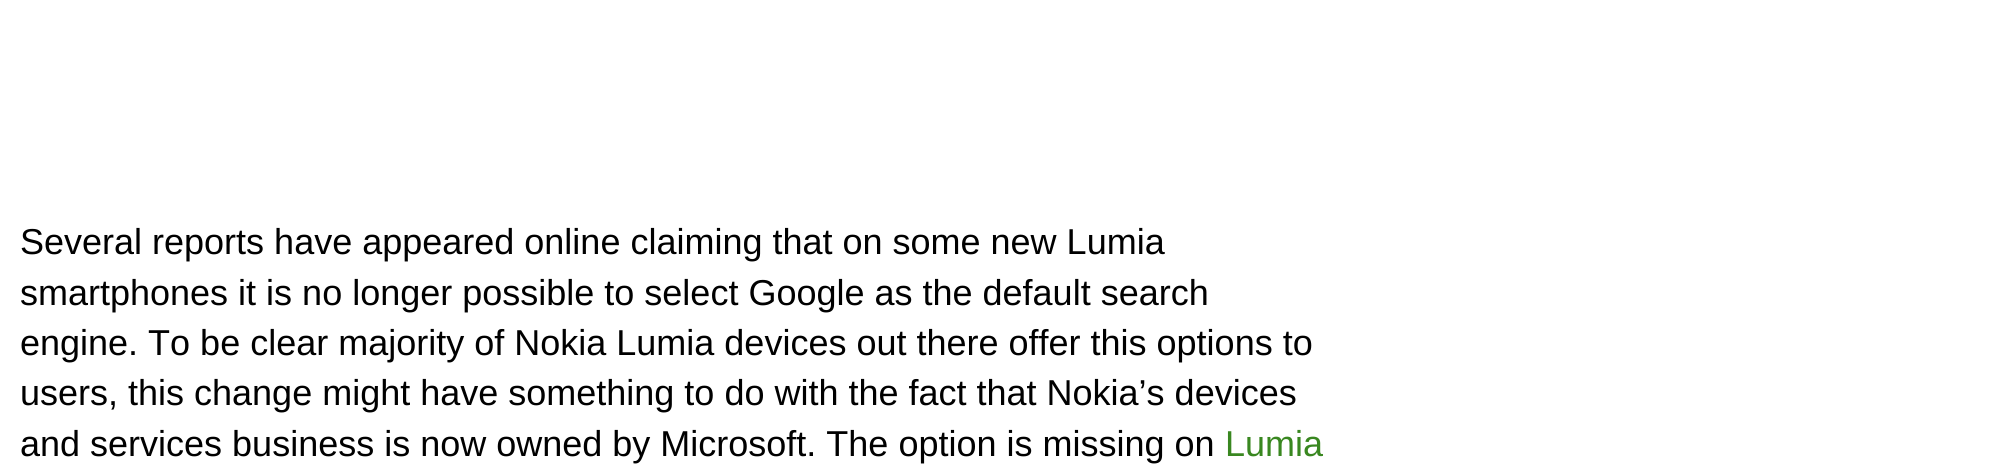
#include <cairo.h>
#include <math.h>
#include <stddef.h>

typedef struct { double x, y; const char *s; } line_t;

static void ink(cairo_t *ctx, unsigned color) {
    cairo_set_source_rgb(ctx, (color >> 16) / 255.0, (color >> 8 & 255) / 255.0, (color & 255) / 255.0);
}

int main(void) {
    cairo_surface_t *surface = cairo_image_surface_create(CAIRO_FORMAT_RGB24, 2001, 472);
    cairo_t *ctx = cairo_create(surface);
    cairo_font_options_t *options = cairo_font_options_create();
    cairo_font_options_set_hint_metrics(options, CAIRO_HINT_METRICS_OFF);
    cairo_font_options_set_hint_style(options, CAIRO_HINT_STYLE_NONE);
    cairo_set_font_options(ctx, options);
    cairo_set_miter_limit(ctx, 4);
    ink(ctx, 0xFFFFFF);
    cairo_paint(ctx);
    cairo_select_font_face(ctx, "Liberation Sans", CAIRO_FONT_SLANT_NORMAL, CAIRO_FONT_WEIGHT_NORMAL);
    cairo_set_font_size(ctx, 36);
    ink(ctx, 0x000000);
    {
        static const line_t items[] = {
            {20, 254, "Several reports have appeared online claiming that on some new Lumia"},
            {20, 305, "smartphones it is no longer possible to select Google as the default search"},
            {20, 355, "engine. To be clear majority of Nokia Lumia devices out there offer this options to"},
            {20, 405, "users, this change might have something to do with the fact that Nokia’s devices"},
            {20, 456, "and services business is now owned by Microsoft. The option is missing on"},
        };
        for (size_t i = 0; i < sizeof items / sizeof *items; i++) {
            cairo_move_to(ctx, items[i].x, items[i].y);
            cairo_show_text(ctx, items[i].s);
        }
    }
    ink(ctx, 0x398720);
    cairo_move_to(ctx, 1225, 456);
    cairo_show_text(ctx, "Lumia");
    cairo_surface_write_to_png(surface, "image.png");
    cairo_font_options_destroy(options);
    cairo_destroy(ctx);
    cairo_surface_destroy(surface);
    return 0;
}
